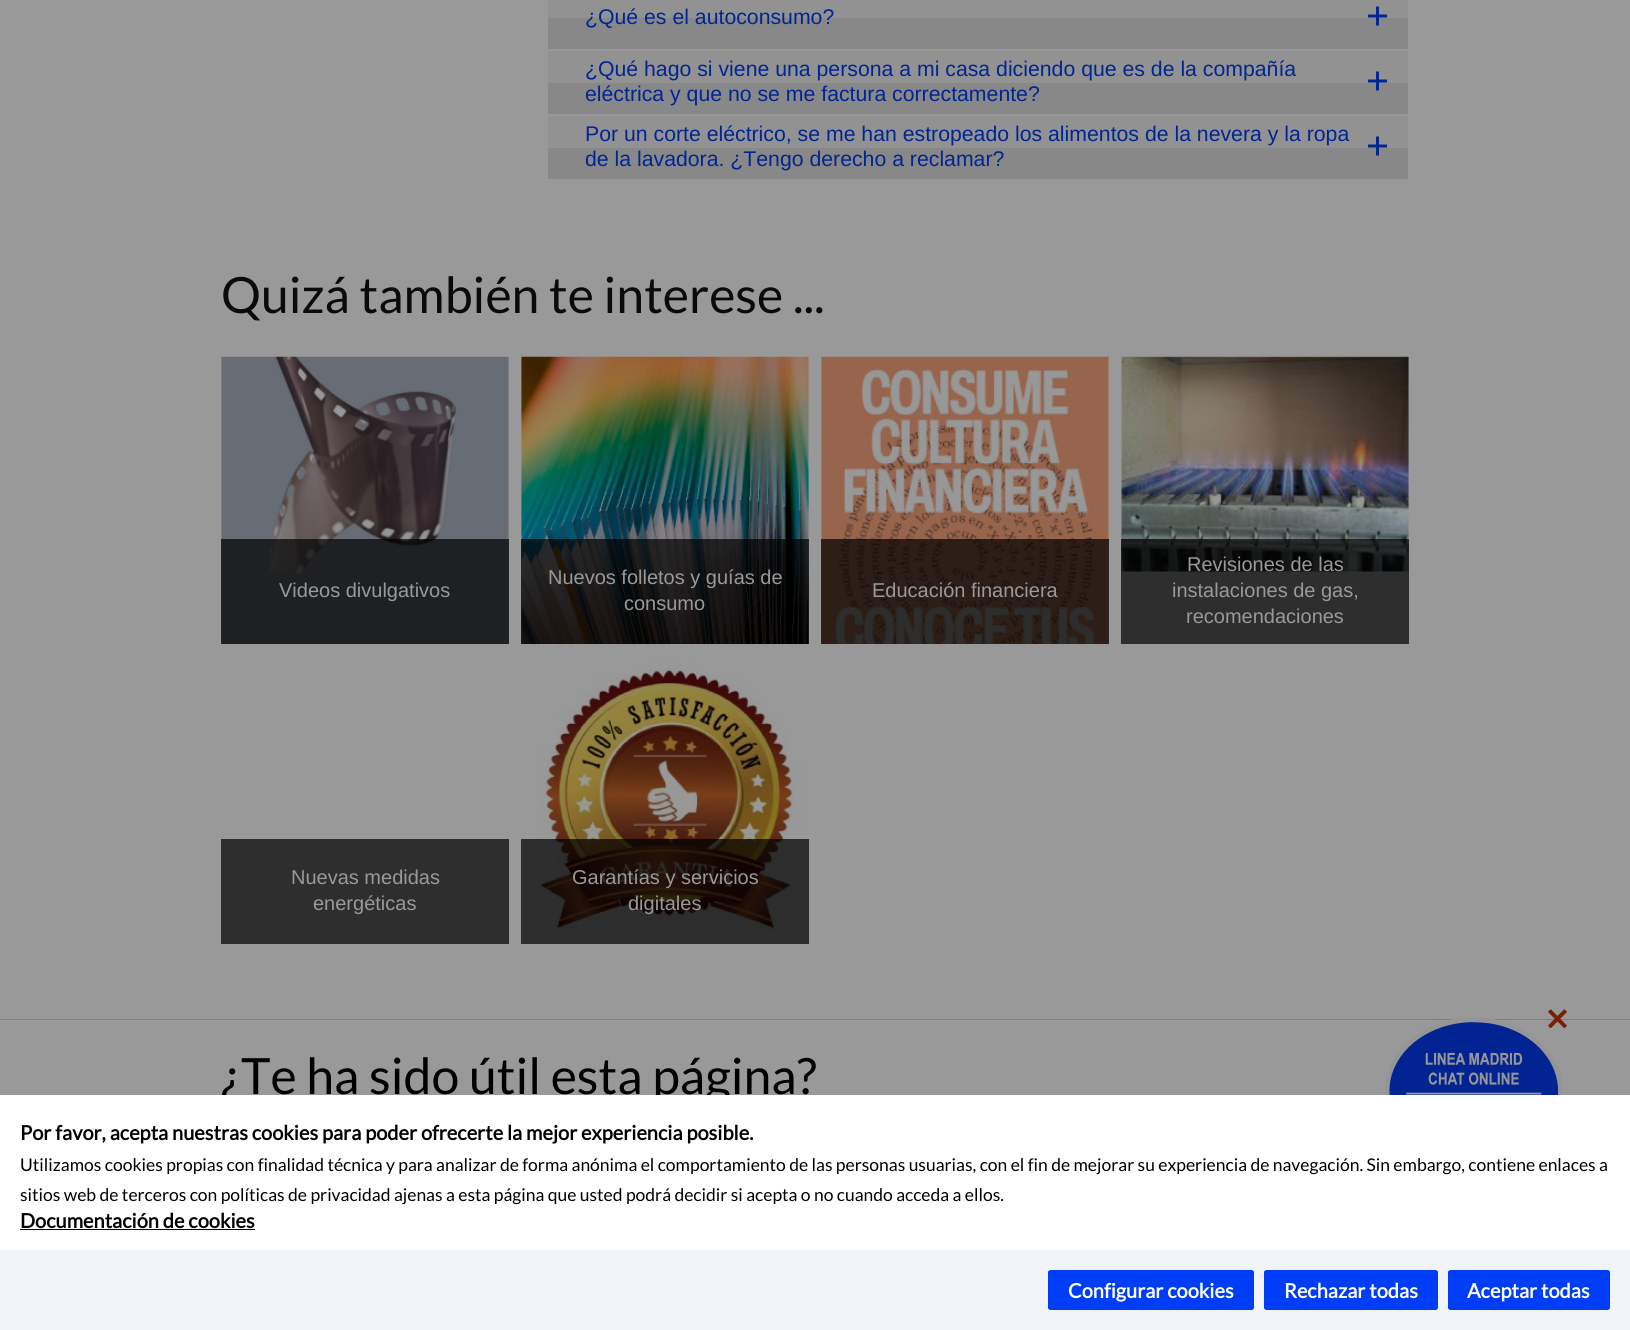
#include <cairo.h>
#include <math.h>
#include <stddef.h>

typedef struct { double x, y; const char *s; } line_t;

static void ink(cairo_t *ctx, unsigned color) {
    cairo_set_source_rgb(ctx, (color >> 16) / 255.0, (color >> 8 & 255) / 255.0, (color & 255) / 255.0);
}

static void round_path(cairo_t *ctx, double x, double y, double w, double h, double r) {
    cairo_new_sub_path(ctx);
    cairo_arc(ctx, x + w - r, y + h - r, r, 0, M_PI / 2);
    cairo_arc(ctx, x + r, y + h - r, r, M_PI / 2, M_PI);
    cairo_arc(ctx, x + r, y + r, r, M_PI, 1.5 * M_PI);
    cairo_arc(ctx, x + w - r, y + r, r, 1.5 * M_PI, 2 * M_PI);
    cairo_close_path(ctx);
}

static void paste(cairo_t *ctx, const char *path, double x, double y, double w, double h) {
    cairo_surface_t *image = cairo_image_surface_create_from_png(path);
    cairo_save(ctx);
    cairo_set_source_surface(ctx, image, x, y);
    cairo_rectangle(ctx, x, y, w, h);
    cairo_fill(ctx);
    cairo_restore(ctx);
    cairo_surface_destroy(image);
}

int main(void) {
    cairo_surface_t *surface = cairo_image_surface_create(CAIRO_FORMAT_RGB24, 1630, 1330);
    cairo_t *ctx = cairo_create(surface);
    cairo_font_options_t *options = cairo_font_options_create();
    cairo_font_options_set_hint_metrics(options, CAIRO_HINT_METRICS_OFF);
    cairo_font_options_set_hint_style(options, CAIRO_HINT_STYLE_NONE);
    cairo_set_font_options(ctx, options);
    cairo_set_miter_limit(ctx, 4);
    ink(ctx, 0x999999);
    cairo_paint(ctx);
    ink(ctx, 0x929292);
    cairo_rectangle(ctx, 548, 0, 860, 18);
    cairo_fill(ctx);
    ink(ctx, 0x888888);
    cairo_rectangle(ctx, 548, 18, 860, 31);
    cairo_fill(ctx);
    cairo_select_font_face(ctx, "Liberation Sans", CAIRO_FONT_SLANT_NORMAL, CAIRO_FONT_WEIGHT_NORMAL);
    cairo_set_font_size(ctx, 21.25);
    ink(ctx, 0x002594);
    cairo_move_to(ctx, 585, 24);
    cairo_show_text(ctx, "¿Qué es el autoconsumo?");
    paste(ctx, "media/1.png", 1368, 6, 19, 20);
    ink(ctx, 0x929292);
    cairo_rectangle(ctx, 548, 51, 860, 32);
    cairo_fill(ctx);
    ink(ctx, 0x888888);
    cairo_rectangle(ctx, 548, 83, 860, 31);
    cairo_fill(ctx);
    ink(ctx, 0x002594);
    cairo_move_to(ctx, 585, 76);
    cairo_show_text(ctx, "¿Qué hago si viene una persona a mi casa diciendo que es de la compañía");
    paste(ctx, "media/1.png", 1368, 71, 19, 20);
    cairo_move_to(ctx, 585, 101);
    cairo_show_text(ctx, "eléctrica y que no se me factura correctamente?");
    ink(ctx, 0x929292);
    cairo_rectangle(ctx, 548, 116, 860, 32);
    cairo_fill(ctx);
    ink(ctx, 0x888888);
    cairo_rectangle(ctx, 548, 148, 860, 31);
    cairo_fill(ctx);
    ink(ctx, 0x002594);
    cairo_move_to(ctx, 585, 141);
    cairo_show_text(ctx, "Por un corte eléctrico, se me han estropeado los alimentos de la nevera y la ropa");
    paste(ctx, "media/1.png", 1368, 136, 19, 20);
    cairo_move_to(ctx, 585, 166);
    cairo_show_text(ctx, "de la lavadora. ¿Tengo derecho a reclamar?");
    cairo_select_font_face(ctx, "Lato", CAIRO_FONT_SLANT_NORMAL, CAIRO_FONT_WEIGHT_NORMAL);
    cairo_set_font_size(ctx, 50);
    ink(ctx, 0x0A0A0A);
    cairo_move_to(ctx, 221, 313);
    cairo_show_text(ctx, "Quizá también te interese ...");
    paste(ctx, "media/2.png", 221, 356, 288, 288);
    cairo_set_source_rgba(ctx, 0, 0, 0, 0.7);
    cairo_rectangle(ctx, 221, 539, 288, 105);
    cairo_fill(ctx);
    cairo_select_font_face(ctx, "Liberation Sans", CAIRO_FONT_SLANT_NORMAL, CAIRO_FONT_WEIGHT_NORMAL);
    cairo_set_font_size(ctx, 20);
    ink(ctx, 0x999999);
    cairo_move_to(ctx, 279, 597);
    cairo_show_text(ctx, "Videos divulgativos");
    paste(ctx, "media/3.png", 521, 356, 288, 288);
    cairo_set_source_rgba(ctx, 0, 0, 0, 0.7);
    cairo_rectangle(ctx, 521, 539, 288, 105);
    cairo_fill(ctx);
    ink(ctx, 0x999999);
    cairo_move_to(ctx, 548, 584);
    cairo_show_text(ctx, "Nuevos folletos y guías de");
    cairo_move_to(ctx, 624, 610);
    cairo_show_text(ctx, "consumo");
    paste(ctx, "media/4.png", 821, 356, 288, 288);
    cairo_set_source_rgba(ctx, 0, 0, 0, 0.7);
    cairo_rectangle(ctx, 821, 539, 288, 105);
    cairo_fill(ctx);
    ink(ctx, 0x999999);
    cairo_move_to(ctx, 872, 597);
    cairo_show_text(ctx, "Educación financiera");
    paste(ctx, "media/5.png", 1121, 356, 288, 216);
    cairo_set_source_rgba(ctx, 0, 0, 0, 0.7);
    cairo_rectangle(ctx, 1121, 539, 288, 105);
    cairo_fill(ctx);
    ink(ctx, 0x999999);
    {
        static const line_t items[] = {
            {1187, 571, "Revisiones de las"},
            {1172, 597, "instalaciones de gas,"},
            {1186, 623, "recomendaciones"},
        };
        for (size_t i = 0; i < sizeof items / sizeof *items; i++) {
            cairo_move_to(ctx, items[i].x, items[i].y);
            cairo_show_text(ctx, items[i].s);
        }
    }
    ink(ctx, 0x2E2E2E);
    cairo_rectangle(ctx, 221, 839, 288, 105);
    cairo_fill(ctx);
    ink(ctx, 0x999999);
    cairo_move_to(ctx, 291, 884);
    cairo_show_text(ctx, "Nuevas medidas");
    cairo_move_to(ctx, 313, 910);
    cairo_show_text(ctx, "energéticas");
    paste(ctx, "media/6.png", 538, 660, 267, 280);
    cairo_set_source_rgba(ctx, 0, 0, 0, 0.7);
    cairo_rectangle(ctx, 521, 839, 288, 105);
    cairo_fill(ctx);
    ink(ctx, 0x999999);
    cairo_move_to(ctx, 572, 884);
    cairo_show_text(ctx, "Garantías y servicios");
    cairo_move_to(ctx, 628, 910);
    cairo_show_text(ctx, "digitales");
    ink(ctx, 0x808080);
    cairo_rectangle(ctx, 0, 1019, 1630, 1);
    cairo_fill(ctx);
    cairo_select_font_face(ctx, "Lato", CAIRO_FONT_SLANT_NORMAL, CAIRO_FONT_WEIGHT_NORMAL);
    cairo_set_font_size(ctx, 50);
    ink(ctx, 0x000000);
    cairo_move_to(ctx, 221, 1094);
    cairo_show_text(ctx, "¿Te ha sido útil esta página?");
    paste(ctx, "media/8.png", 1385, 1017, 178, 78);
    paste(ctx, "media/7.png", 1548, 1009, 19, 20);
    ink(ctx, 0xFFFFFF);
    cairo_rectangle(ctx, 0, 1095, 1630, 155);
    cairo_fill(ctx);
    cairo_select_font_face(ctx, "Lato", CAIRO_FONT_SLANT_NORMAL, CAIRO_FONT_WEIGHT_BOLD);
    cairo_set_font_size(ctx, 20);
    ink(ctx, 0x000000);
    cairo_move_to(ctx, 20, 1140);
    cairo_show_text(ctx, "Por favor, acepta nuestras cookies para poder ofrecerte la mejor experiencia posible.");
    cairo_select_font_face(ctx, "Lato", CAIRO_FONT_SLANT_NORMAL, CAIRO_FONT_WEIGHT_NORMAL);
    cairo_set_font_size(ctx, 17.5);
    cairo_move_to(ctx, 20, 1171);
    cairo_show_text(ctx, "Utilizamos cookies propias con finalidad técnica y para analizar de forma anónima el comportamiento de las personas usuarias, con el fin de mejorar su experiencia de navegación. Sin embargo, contiene enlaces a");
    cairo_move_to(ctx, 20, 1201);
    cairo_show_text(ctx, "sitios web de terceros con políticas de privacidad ajenas a esta página que usted podrá decidir si acepta o no cuando acceda a ellos.");
    cairo_select_font_face(ctx, "Lato", CAIRO_FONT_SLANT_NORMAL, CAIRO_FONT_WEIGHT_BOLD);
    cairo_set_font_size(ctx, 20);
    cairo_move_to(ctx, 20, 1228);
    cairo_show_text(ctx, "Documentación de cookies");
    cairo_rectangle(ctx, 20, 1229, 235, 1);
    cairo_fill(ctx);
    ink(ctx, 0xF1F5F9);
    cairo_rectangle(ctx, 0, 1250, 1630, 80);
    cairo_fill(ctx);
    ink(ctx, 0x003DF6);
    round_path(ctx, 1048, 1270, 206, 40, 2.5);
    cairo_fill(ctx);
    ink(ctx, 0xFFFFFF);
    cairo_move_to(ctx, 1068, 1298);
    cairo_show_text(ctx, "Configurar cookies");
    ink(ctx, 0x003DF6);
    round_path(ctx, 1264, 1270, 174, 40, 2.5);
    cairo_fill(ctx);
    ink(ctx, 0xFFFFFF);
    cairo_move_to(ctx, 1284, 1298);
    cairo_show_text(ctx, "Rechazar todas");
    ink(ctx, 0x003DF6);
    round_path(ctx, 1448, 1270, 162, 40, 2.5);
    cairo_fill(ctx);
    ink(ctx, 0xFFFFFF);
    cairo_move_to(ctx, 1467, 1298);
    cairo_show_text(ctx, "Aceptar todas");
    cairo_surface_write_to_png(surface, "image.png");
    cairo_font_options_destroy(options);
    cairo_destroy(ctx);
    cairo_surface_destroy(surface);
    return 0;
}
